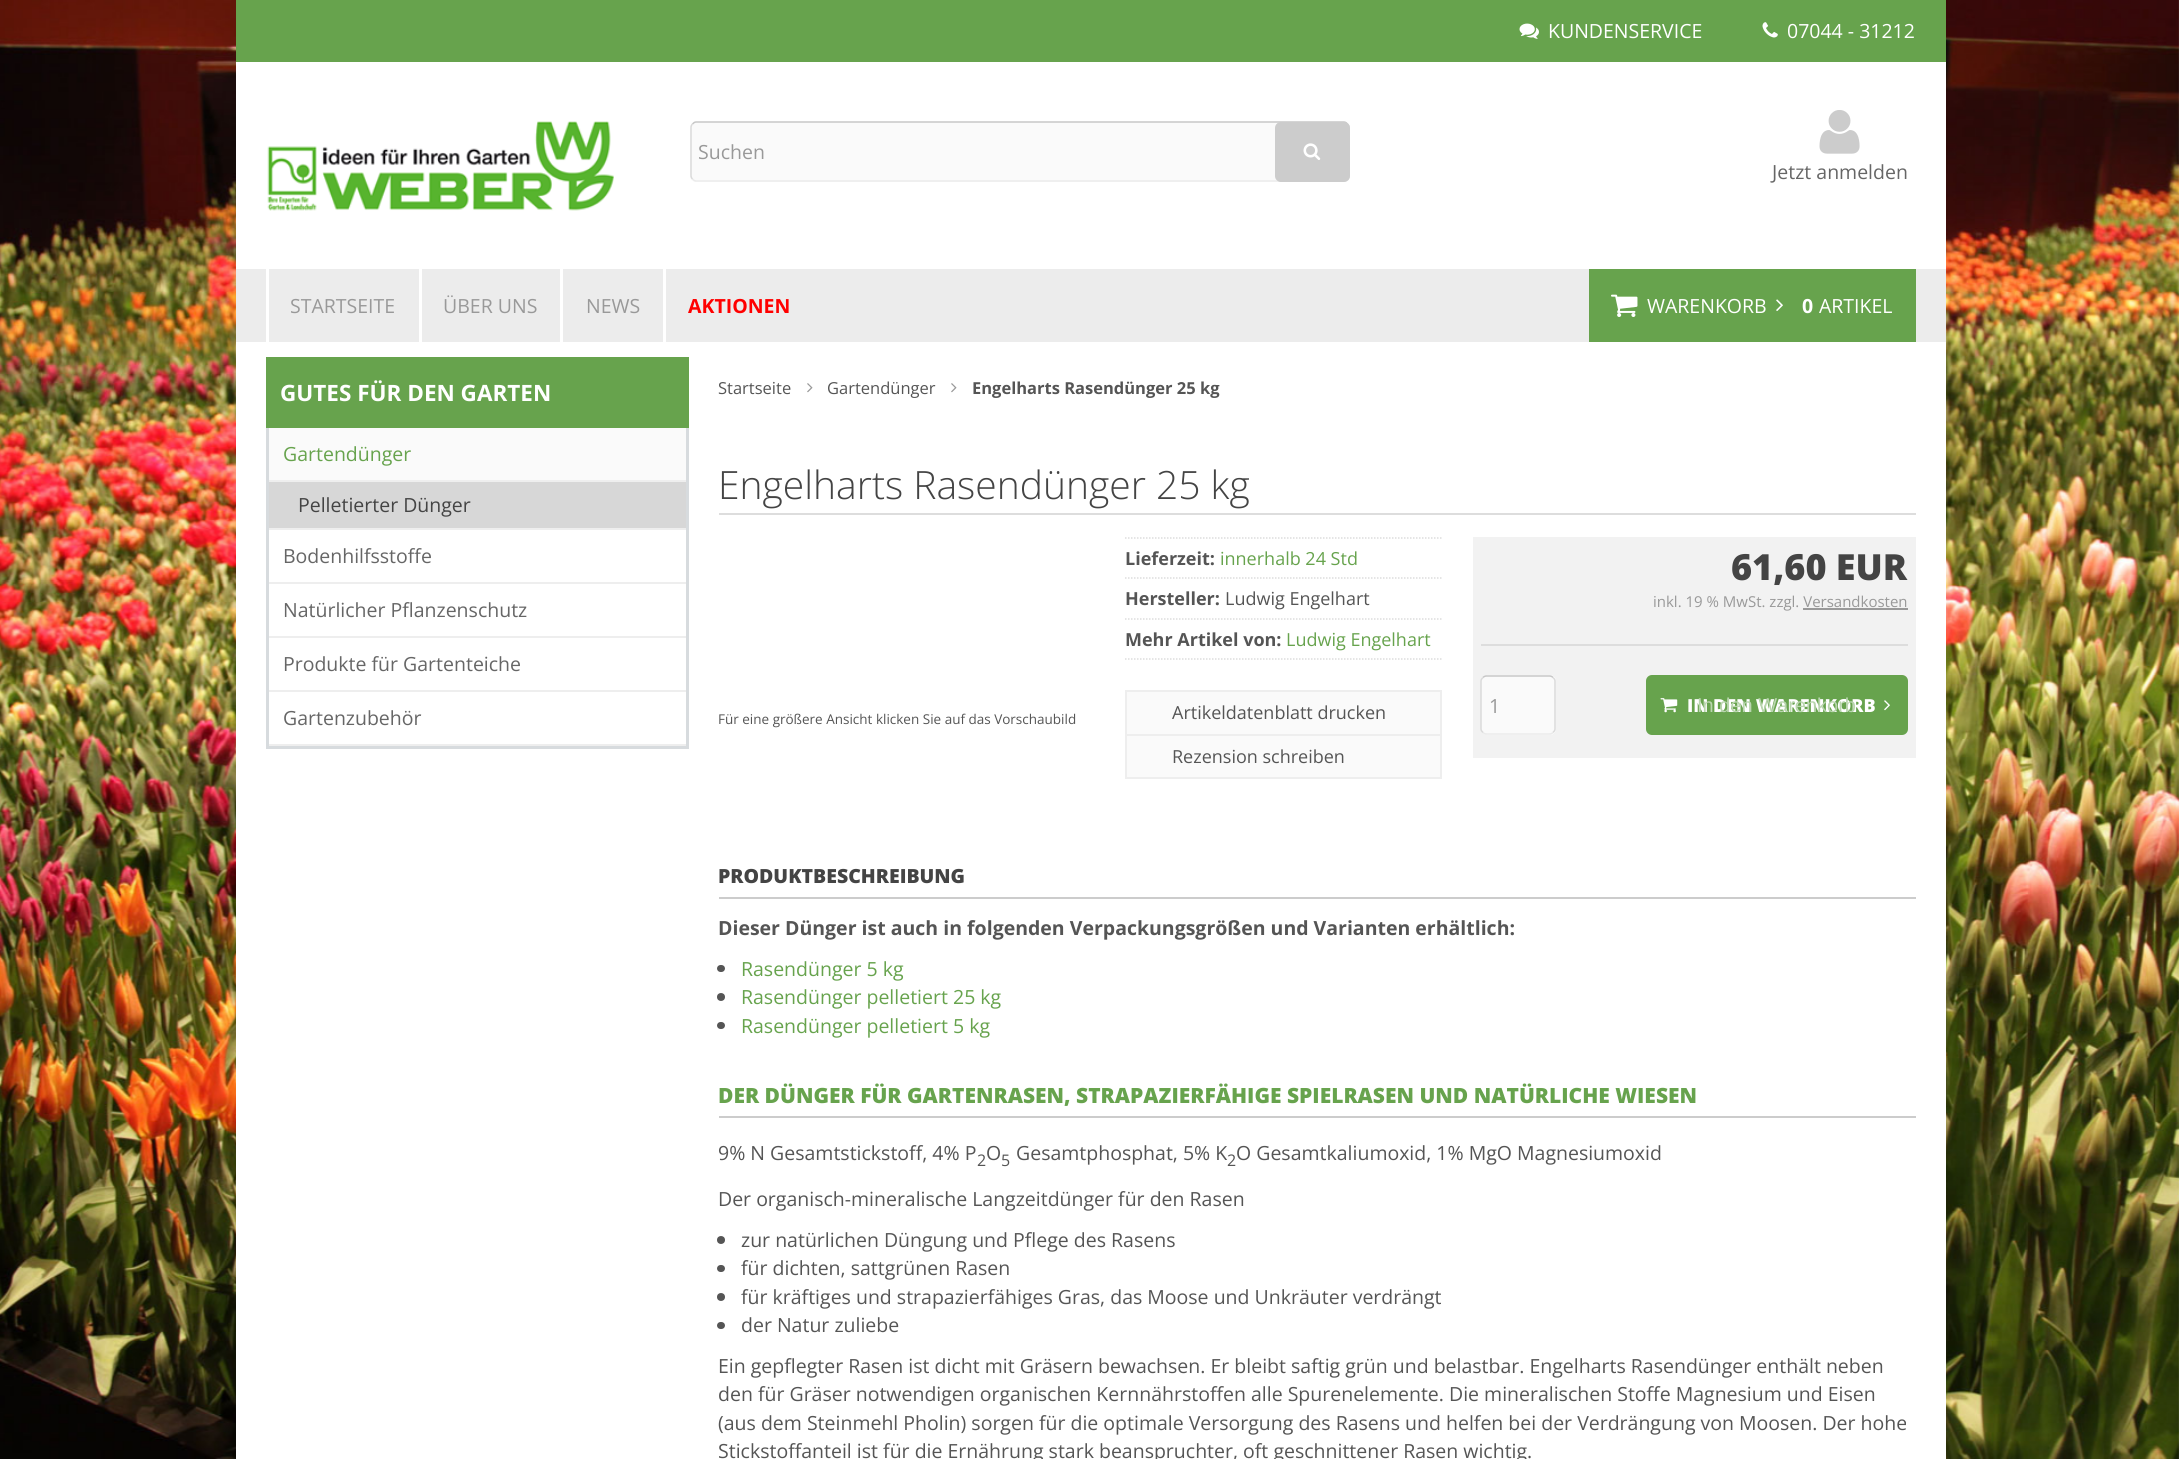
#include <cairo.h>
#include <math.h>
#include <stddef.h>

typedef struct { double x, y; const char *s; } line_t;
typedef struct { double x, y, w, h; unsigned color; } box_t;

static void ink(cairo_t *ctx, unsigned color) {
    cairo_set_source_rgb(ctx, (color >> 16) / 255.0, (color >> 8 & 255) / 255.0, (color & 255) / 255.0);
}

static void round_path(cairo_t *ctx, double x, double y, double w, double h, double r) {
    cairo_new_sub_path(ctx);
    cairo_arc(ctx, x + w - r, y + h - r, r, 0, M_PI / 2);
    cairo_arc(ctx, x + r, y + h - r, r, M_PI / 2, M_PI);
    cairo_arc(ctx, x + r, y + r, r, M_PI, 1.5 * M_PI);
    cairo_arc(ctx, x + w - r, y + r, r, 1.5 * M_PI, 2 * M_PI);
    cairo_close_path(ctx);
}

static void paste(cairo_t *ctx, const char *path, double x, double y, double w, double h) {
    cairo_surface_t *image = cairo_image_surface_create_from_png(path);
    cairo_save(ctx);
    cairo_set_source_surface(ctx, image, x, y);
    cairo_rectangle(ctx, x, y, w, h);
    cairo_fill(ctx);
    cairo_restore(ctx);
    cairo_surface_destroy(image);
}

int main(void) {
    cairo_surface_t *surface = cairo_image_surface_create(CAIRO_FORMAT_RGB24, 2179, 1459);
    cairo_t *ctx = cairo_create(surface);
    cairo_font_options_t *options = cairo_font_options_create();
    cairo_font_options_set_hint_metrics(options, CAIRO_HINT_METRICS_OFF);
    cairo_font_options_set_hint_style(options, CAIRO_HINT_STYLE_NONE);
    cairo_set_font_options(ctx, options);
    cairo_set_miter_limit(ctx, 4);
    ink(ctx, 0xFFFFFF);
    cairo_paint(ctx);
    paste(ctx, "media/1.png", 0, 0, 2179, 1459);
    ink(ctx, 0xFFFFFF);
    cairo_rectangle(ctx, 236, 62, 1710, 1397);
    cairo_fill(ctx);
    ink(ctx, 0x67A34D);
    cairo_rectangle(ctx, 236, 0, 1710, 62);
    cairo_fill(ctx);
    paste(ctx, "media/2.png", 1519, 23, 20, 16);
    cairo_select_font_face(ctx, "Open Sans", CAIRO_FONT_SLANT_NORMAL, CAIRO_FONT_WEIGHT_NORMAL);
    cairo_set_font_size(ctx, 19.5);
    ink(ctx, 0xFFFFFF);
    cairo_move_to(ctx, 1548, 38);
    cairo_show_text(ctx, "KUNDENSERVICE");
    paste(ctx, "media/3.png", 1762, 22, 16, 16);
    cairo_move_to(ctx, 1787, 38);
    cairo_show_text(ctx, "07044 - 31212");
    paste(ctx, "media/4.png", 267, 121, 347, 90);
    ink(ctx, 0xFAFAFA);
    round_path(ctx, 690, 122, 660, 60, 6);
    cairo_fill(ctx);
    cairo_new_path(ctx);
    cairo_move_to(ctx, 692.5, 124);
    cairo_curve_to(ctx, 693.5, 123, 694.5, 122, 696, 122);
    cairo_line_to(ctx, 1344, 122);
    cairo_curve_to(ctx, 1345.5, 122, 1346.5, 123, 1347.5, 124);
    ink(ctx, 0xC6C6C6);
    cairo_set_line_width(ctx, 1.5);
    cairo_stroke(ctx);
    cairo_new_path(ctx);
    cairo_move_to(ctx, 1347.5, 124);
    cairo_curve_to(ctx, 1348.5, 125, 1349, 126, 1349, 127.5);
    cairo_line_to(ctx, 1349, 175.5);
    cairo_curve_to(ctx, 1349, 177, 1348.5, 178, 1347.5, 179);
    ink(ctx, 0xDADADA);
    cairo_stroke(ctx);
    cairo_new_path(ctx);
    cairo_move_to(ctx, 1347.5, 179);
    cairo_curve_to(ctx, 1346.5, 180, 1345.5, 181, 1344, 181);
    cairo_line_to(ctx, 696, 181);
    cairo_curve_to(ctx, 694.5, 181, 693.5, 180, 692.5, 179);
    ink(ctx, 0xEAEAEA);
    cairo_stroke(ctx);
    cairo_new_path(ctx);
    cairo_move_to(ctx, 692.5, 179);
    cairo_curve_to(ctx, 691.5, 178, 691, 177, 691, 175.5);
    cairo_line_to(ctx, 691, 127.5);
    cairo_curve_to(ctx, 691, 126, 691.5, 125, 692.5, 124);
    ink(ctx, 0xDADADA);
    cairo_stroke(ctx);
    ink(ctx, 0x999999);
    cairo_move_to(ctx, 698, 159);
    cairo_show_text(ctx, "Suchen");
    ink(ctx, 0xCCCCCC);
    round_path(ctx, 1276, 123, 73, 58, 5);
    cairo_fill_preserve(ctx);
    cairo_set_line_width(ctx, 2);
    cairo_stroke(ctx);
    paste(ctx, "media/5.png", 1303, 143, 18, 17);
    paste(ctx, "media/6.png", 1819, 110, 41, 44);
    ink(ctx, 0x666666);
    cairo_move_to(ctx, 1772, 179);
    cairo_show_text(ctx, "Jetzt anmelden");
    ink(ctx, 0xECECEC);
    cairo_rectangle(ctx, 236, 269, 1710, 73);
    cairo_fill(ctx);
    ink(ctx, 0xFFFFFF);
    cairo_rectangle(ctx, 266, 269, 3, 73);
    cairo_fill(ctx);
    ink(ctx, 0x999999);
    cairo_move_to(ctx, 290, 313);
    cairo_show_text(ctx, "STARTSEITE");
    ink(ctx, 0xFFFFFF);
    cairo_rectangle(ctx, 419, 269, 3, 73);
    cairo_fill(ctx);
    ink(ctx, 0x999999);
    cairo_move_to(ctx, 443, 313);
    cairo_show_text(ctx, "ÜBER UNS");
    ink(ctx, 0xFFFFFF);
    cairo_rectangle(ctx, 560, 269, 3, 73);
    cairo_fill(ctx);
    ink(ctx, 0x999999);
    cairo_move_to(ctx, 586, 313);
    cairo_show_text(ctx, "NEWS");
    ink(ctx, 0xFFFFFF);
    cairo_rectangle(ctx, 663, 269, 3, 73);
    cairo_fill(ctx);
    cairo_select_font_face(ctx, "Open Sans", CAIRO_FONT_SLANT_NORMAL, CAIRO_FONT_WEIGHT_BOLD);
    ink(ctx, 0xFF0000);
    cairo_move_to(ctx, 688, 313);
    cairo_show_text(ctx, "AKTIONEN");
    ink(ctx, 0x67A34D);
    cairo_rectangle(ctx, 1589, 269, 327, 73);
    cairo_fill(ctx);
    paste(ctx, "media/7.png", 1611, 294, 27, 23);
    cairo_select_font_face(ctx, "Open Sans", CAIRO_FONT_SLANT_NORMAL, CAIRO_FONT_WEIGHT_NORMAL);
    ink(ctx, 0xFFFFFF);
    cairo_move_to(ctx, 1647, 313);
    cairo_show_text(ctx, "WARENKORB");
    paste(ctx, "media/8.png", 1776, 299, 7, 12);
    cairo_select_font_face(ctx, "Open Sans", CAIRO_FONT_SLANT_NORMAL, CAIRO_FONT_WEIGHT_BOLD);
    cairo_move_to(ctx, 1802, 313);
    cairo_show_text(ctx, "0");
    cairo_select_font_face(ctx, "Open Sans", CAIRO_FONT_SLANT_NORMAL, CAIRO_FONT_WEIGHT_NORMAL);
    cairo_move_to(ctx, 1819, 313);
    cairo_show_text(ctx, "ARTIKEL");
    ink(ctx, 0x67A34D);
    cairo_rectangle(ctx, 266, 357, 423, 71);
    cairo_fill(ctx);
    cairo_select_font_face(ctx, "Open Sans", CAIRO_FONT_SLANT_NORMAL, CAIRO_FONT_WEIGHT_BOLD);
    cairo_set_font_size(ctx, 22.5);
    ink(ctx, 0xFFFFFF);
    cairo_move_to(ctx, 280, 401);
    cairo_show_text(ctx, "GUTES FÜR DEN GARTEN");
    {
        static const box_t items[] = {
            {686, 428, 3, 321, 0xD7DBDE},
            {266, 746, 423, 3, 0xD7DBDE},
            {266, 428, 3, 321, 0xD7DBDE},
            {269, 428, 417, 52, 0xFAFAFA},
            {269, 480, 417, 2, 0xEEEEEE},
        };
        for (size_t i = 0; i < sizeof items / sizeof *items; i++) {
            ink(ctx, items[i].color);
            cairo_rectangle(ctx, items[i].x, items[i].y, items[i].w, items[i].h);
            cairo_fill(ctx);
        }
    }
    cairo_select_font_face(ctx, "Open Sans", CAIRO_FONT_SLANT_NORMAL, CAIRO_FONT_WEIGHT_NORMAL);
    cairo_set_font_size(ctx, 19.5);
    ink(ctx, 0x67A34D);
    cairo_move_to(ctx, 283, 461);
    cairo_show_text(ctx, "Gartendünger");
    ink(ctx, 0xD7D7D7);
    cairo_rectangle(ctx, 269, 482, 417, 46);
    cairo_fill(ctx);
    ink(ctx, 0xEEEEEE);
    cairo_rectangle(ctx, 269, 528, 417, 2);
    cairo_fill(ctx);
    ink(ctx, 0x444444);
    cairo_move_to(ctx, 298, 512);
    cairo_show_text(ctx, "Pelletierter Dünger");
    ink(ctx, 0xEEEEEE);
    cairo_rectangle(ctx, 269, 582, 417, 2);
    cairo_fill(ctx);
    ink(ctx, 0x666666);
    cairo_move_to(ctx, 283, 563);
    cairo_show_text(ctx, "Bodenhilfsstoffe");
    ink(ctx, 0xEEEEEE);
    cairo_rectangle(ctx, 269, 636, 417, 2);
    cairo_fill(ctx);
    ink(ctx, 0x666666);
    cairo_move_to(ctx, 283, 617);
    cairo_show_text(ctx, "Natürlicher Pflanzenschutz");
    ink(ctx, 0xEEEEEE);
    cairo_rectangle(ctx, 269, 690, 417, 2);
    cairo_fill(ctx);
    ink(ctx, 0x666666);
    cairo_move_to(ctx, 283, 671);
    cairo_show_text(ctx, "Produkte für Gartenteiche");
    ink(ctx, 0xEEEEEE);
    cairo_rectangle(ctx, 269, 744, 417, 2);
    cairo_fill(ctx);
    ink(ctx, 0x666666);
    cairo_move_to(ctx, 283, 725);
    cairo_show_text(ctx, "Gartenzubehör");
    cairo_set_font_size(ctx, 16.5);
    ink(ctx, 0x555555);
    cairo_move_to(ctx, 718, 394);
    cairo_show_text(ctx, "Startseite");
    paste(ctx, "media/9.png", 807, 383, 6, 10);
    cairo_move_to(ctx, 827, 394);
    cairo_show_text(ctx, "Gartendünger");
    paste(ctx, "media/9.png", 951, 383, 6, 10);
    cairo_select_font_face(ctx, "Open Sans", CAIRO_FONT_SLANT_NORMAL, CAIRO_FONT_WEIGHT_BOLD);
    cairo_move_to(ctx, 972, 394);
    cairo_show_text(ctx, "Engelharts Rasendünger 25 kg");
    ink(ctx, 0xDDDDDD);
    cairo_rectangle(ctx, 719, 513, 1197, 2);
    cairo_fill(ctx);
    cairo_select_font_face(ctx, "Open Sans Light", CAIRO_FONT_SLANT_NORMAL, CAIRO_FONT_WEIGHT_NORMAL);
    cairo_set_font_size(ctx, 39);
    ink(ctx, 0x444444);
    cairo_move_to(ctx, 718, 499);
    cairo_show_text(ctx, "Engelharts Rasendünger 25 kg");
    cairo_select_font_face(ctx, "Open Sans", CAIRO_FONT_SLANT_NORMAL, CAIRO_FONT_WEIGHT_NORMAL);
    cairo_set_font_size(ctx, 13.5);
    ink(ctx, 0x555555);
    cairo_move_to(ctx, 718, 724);
    cairo_show_text(ctx, "Für eine größere Ansicht klicken Sie auf das Vorschaubild");
    cairo_new_path(ctx);
    cairo_move_to(ctx, 1125, 538);
    cairo_line_to(ctx, 1441.5, 538);
    ink(ctx, 0xDDDDDD);
    cairo_set_line_width(ctx, 1.5);
    cairo_set_dash(ctx, (double[]){1.5, 1.5}, 2, 0);
    cairo_stroke(ctx);
    cairo_new_path(ctx);
    cairo_move_to(ctx, 1125, 578);
    cairo_line_to(ctx, 1441.5, 578);
    cairo_stroke(ctx);
    cairo_select_font_face(ctx, "Open Sans", CAIRO_FONT_SLANT_NORMAL, CAIRO_FONT_WEIGHT_BOLD);
    cairo_set_font_size(ctx, 18);
    ink(ctx, 0x555555);
    cairo_move_to(ctx, 1125, 565);
    cairo_show_text(ctx, "Lieferzeit:");
    cairo_select_font_face(ctx, "Open Sans", CAIRO_FONT_SLANT_NORMAL, CAIRO_FONT_WEIGHT_NORMAL);
    ink(ctx, 0x67A34D);
    cairo_move_to(ctx, 1220, 565);
    cairo_show_text(ctx, "innerhalb 24 Std");
    cairo_new_path(ctx);
    cairo_move_to(ctx, 1125, 619);
    cairo_line_to(ctx, 1441.5, 619);
    ink(ctx, 0xDDDDDD);
    cairo_stroke(ctx);
    cairo_select_font_face(ctx, "Open Sans", CAIRO_FONT_SLANT_NORMAL, CAIRO_FONT_WEIGHT_BOLD);
    ink(ctx, 0x555555);
    cairo_move_to(ctx, 1125, 605);
    cairo_show_text(ctx, "Hersteller:");
    cairo_select_font_face(ctx, "Open Sans", CAIRO_FONT_SLANT_NORMAL, CAIRO_FONT_WEIGHT_NORMAL);
    cairo_move_to(ctx, 1225, 605);
    cairo_show_text(ctx, "Ludwig Engelhart");
    cairo_new_path(ctx);
    cairo_move_to(ctx, 1125, 659);
    cairo_line_to(ctx, 1441.5, 659);
    ink(ctx, 0xDDDDDD);
    cairo_stroke(ctx);
    cairo_select_font_face(ctx, "Open Sans", CAIRO_FONT_SLANT_NORMAL, CAIRO_FONT_WEIGHT_BOLD);
    ink(ctx, 0x555555);
    cairo_move_to(ctx, 1125, 646);
    cairo_show_text(ctx, "Mehr Artikel von:");
    cairo_select_font_face(ctx, "Open Sans", CAIRO_FONT_SLANT_NORMAL, CAIRO_FONT_WEIGHT_NORMAL);
    ink(ctx, 0x67A34D);
    cairo_move_to(ctx, 1286, 646);
    cairo_show_text(ctx, "Ludwig Engelhart");
    {
        static const box_t items[] = {
            {1127, 692, 313, 85, 0xFAFAFA},
            {1125, 690, 317, 2, 0xEEEEEE},
            {1440, 690, 2, 89, 0xEEEEEE},
            {1125, 690, 2, 89, 0xEEEEEE},
            {1127, 734, 313, 2, 0xEEEEEE},
        };
        for (size_t i = 0; i < sizeof items / sizeof *items; i++) {
            ink(ctx, items[i].color);
            cairo_rectangle(ctx, items[i].x, items[i].y, items[i].w, items[i].h);
            cairo_fill(ctx);
        }
    }
    ink(ctx, 0x555555);
    cairo_move_to(ctx, 1172, 719);
    cairo_show_text(ctx, "Artikeldatenblatt drucken");
    ink(ctx, 0xEEEEEE);
    cairo_rectangle(ctx, 1127, 777, 313, 2);
    cairo_fill(ctx);
    ink(ctx, 0x555555);
    cairo_move_to(ctx, 1172, 763);
    cairo_show_text(ctx, "Rezension schreiben");
    ink(ctx, 0xF2F2F2);
    cairo_rectangle(ctx, 1473, 537, 443, 221);
    cairo_fill(ctx);
    cairo_select_font_face(ctx, "Open Sans ExtraBold", CAIRO_FONT_SLANT_NORMAL, CAIRO_FONT_WEIGHT_NORMAL);
    cairo_set_font_size(ctx, 36);
    ink(ctx, 0x444444);
    cairo_move_to(ctx, 1731, 580);
    cairo_show_text(ctx, "61,60 EUR");
    cairo_select_font_face(ctx, "Open Sans", CAIRO_FONT_SLANT_NORMAL, CAIRO_FONT_WEIGHT_NORMAL);
    cairo_set_font_size(ctx, 15);
    ink(ctx, 0x999999);
    cairo_move_to(ctx, 1653, 607);
    cairo_show_text(ctx, "inkl. 19 % MwSt. zzgl. Versandkosten");
    cairo_rectangle(ctx, 1803, 608, 105, 2);
    cairo_fill(ctx);
    ink(ctx, 0xDDDDDD);
    cairo_rectangle(ctx, 1481, 644, 427, 2);
    cairo_fill(ctx);
    ink(ctx, 0xFAFAFA);
    round_path(ctx, 1481, 675, 75, 60, 6);
    cairo_fill(ctx);
    cairo_new_path(ctx);
    cairo_move_to(ctx, 1483, 677.5);
    cairo_curve_to(ctx, 1484, 676.5, 1485, 676, 1486.5, 676);
    cairo_line_to(ctx, 1549.5, 676);
    cairo_curve_to(ctx, 1551, 676, 1552, 676.5, 1553, 677.5);
    ink(ctx, 0xC6C6C6);
    cairo_set_dash(ctx, NULL, 0, 0);
    cairo_stroke(ctx);
    cairo_new_path(ctx);
    cairo_move_to(ctx, 1553, 677.5);
    cairo_curve_to(ctx, 1554, 678.5, 1555, 679.5, 1555, 681);
    cairo_line_to(ctx, 1555, 729);
    cairo_curve_to(ctx, 1555, 730.5, 1554, 731.5, 1553, 732.5);
    ink(ctx, 0xDADADA);
    cairo_stroke(ctx);
    cairo_new_path(ctx);
    cairo_move_to(ctx, 1553, 732.5);
    cairo_curve_to(ctx, 1552, 733.5, 1551, 734, 1549.5, 734);
    cairo_line_to(ctx, 1486.5, 734);
    cairo_curve_to(ctx, 1485, 734, 1484, 733.5, 1483, 732.5);
    ink(ctx, 0xEAEAEA);
    cairo_stroke(ctx);
    cairo_new_path(ctx);
    cairo_move_to(ctx, 1483, 732.5);
    cairo_curve_to(ctx, 1482, 731.5, 1481, 730.5, 1481, 729);
    cairo_line_to(ctx, 1481, 681);
    cairo_curve_to(ctx, 1481, 679.5, 1482, 678.5, 1483, 677.5);
    ink(ctx, 0xDADADA);
    cairo_stroke(ctx);
    cairo_set_font_size(ctx, 19.5);
    ink(ctx, 0x999999);
    cairo_move_to(ctx, 1489, 713);
    cairo_show_text(ctx, "1");
    ink(ctx, 0x67A34D);
    round_path(ctx, 1647, 676, 260, 58, 5);
    cairo_fill_preserve(ctx);
    cairo_set_line_width(ctx, 2);
    cairo_stroke(ctx);
    paste(ctx, "media/10.png", 1660, 698, 18, 15);
    cairo_select_font_face(ctx, "Open Sans ExtraBold", CAIRO_FONT_SLANT_NORMAL, CAIRO_FONT_WEIGHT_NORMAL);
    cairo_set_font_size(ctx, 18);
    ink(ctx, 0xFFFFFF);
    cairo_move_to(ctx, 1687, 712);
    cairo_show_text(ctx, "IN DEN WARENKORB");
    cairo_select_font_face(ctx, "Liberation Sans", CAIRO_FONT_SLANT_NORMAL, CAIRO_FONT_WEIGHT_NORMAL);
    cairo_set_font_size(ctx, 20);
    ink(ctx, 0xB9D5AE);
    cairo_move_to(ctx, 1697, 712);
    cairo_show_text(ctx, "In den Warenkorb");
    paste(ctx, "media/11.png", 1884, 700, 6, 11);
    ink(ctx, 0xCCCCCC);
    cairo_rectangle(ctx, 719, 897, 1197, 2);
    cairo_fill(ctx);
    cairo_select_font_face(ctx, "Open Sans ExtraBold", CAIRO_FONT_SLANT_NORMAL, CAIRO_FONT_WEIGHT_NORMAL);
    cairo_set_font_size(ctx, 19.5);
    ink(ctx, 0x444444);
    cairo_move_to(ctx, 718, 883);
    cairo_show_text(ctx, "PRODUKTBESCHREIBUNG");
    cairo_select_font_face(ctx, "Open Sans", CAIRO_FONT_SLANT_NORMAL, CAIRO_FONT_WEIGHT_BOLD);
    ink(ctx, 0x555555);
    cairo_move_to(ctx, 718, 935);
    cairo_show_text(ctx, "Dieser Dünger ist auch in folgenden Verpackungsgrößen und Varianten erhältlich:");
    round_path(ctx, 717, 965, 8, 7, 3.5);
    cairo_fill(ctx);
    cairo_select_font_face(ctx, "Open Sans", CAIRO_FONT_SLANT_NORMAL, CAIRO_FONT_WEIGHT_NORMAL);
    ink(ctx, 0x67A34D);
    cairo_move_to(ctx, 741, 976);
    cairo_show_text(ctx, "Rasendünger 5 kg");
    ink(ctx, 0x555555);
    cairo_new_path(ctx);
    cairo_arc(ctx, 721, 997, 4, 0, 2 * M_PI);
    cairo_fill(ctx);
    ink(ctx, 0x67A34D);
    cairo_move_to(ctx, 741, 1004);
    cairo_show_text(ctx, "Rasendünger pelletiert 25 kg");
    ink(ctx, 0x555555);
    round_path(ctx, 717, 1022, 8, 7, 3.5);
    cairo_fill(ctx);
    ink(ctx, 0x67A34D);
    cairo_move_to(ctx, 741, 1033);
    cairo_show_text(ctx, "Rasendünger pelletiert 5 kg");
    ink(ctx, 0xCCCCCC);
    cairo_rectangle(ctx, 719, 1116, 1197, 2);
    cairo_fill(ctx);
    cairo_select_font_face(ctx, "Open Sans ExtraBold", CAIRO_FONT_SLANT_NORMAL, CAIRO_FONT_WEIGHT_NORMAL);
    cairo_set_font_size(ctx, 21);
    ink(ctx, 0x67A34D);
    cairo_move_to(ctx, 718, 1103);
    cairo_show_text(ctx, "DER DÜNGER FÜR GARTENRASEN, STRAPAZIERFÄHIGE SPIELRASEN UND NATÜRLICHE WIESEN");
    cairo_select_font_face(ctx, "Open Sans", CAIRO_FONT_SLANT_NORMAL, CAIRO_FONT_WEIGHT_NORMAL);
    cairo_set_font_size(ctx, 19.5);
    ink(ctx, 0x555555);
    cairo_move_to(ctx, 718, 1160);
    cairo_show_text(ctx, "9% N Gesamtstickstoff, 4% P");
    cairo_set_font_size(ctx, 16);
    cairo_move_to(ctx, 977, 1166);
    cairo_show_text(ctx, "2");
    cairo_set_font_size(ctx, 19.5);
    cairo_move_to(ctx, 986, 1160);
    cairo_show_text(ctx, "O");
    cairo_set_font_size(ctx, 16);
    cairo_move_to(ctx, 1001, 1166);
    cairo_show_text(ctx, "5");
    cairo_set_font_size(ctx, 19.5);
    cairo_move_to(ctx, 1016, 1160);
    cairo_show_text(ctx, "Gesamtphosphat, 5% K");
    cairo_set_font_size(ctx, 16);
    cairo_move_to(ctx, 1227, 1166);
    cairo_show_text(ctx, "2");
    cairo_set_font_size(ctx, 19.5);
    cairo_move_to(ctx, 1236, 1160);
    cairo_show_text(ctx, "O Gesamtkaliumoxid, 1% MgO Magnesiumoxid");
    cairo_move_to(ctx, 718, 1206);
    cairo_show_text(ctx, "Der organisch-mineralische Langzeitdünger für den Rasen");
    cairo_new_path(ctx);
    cairo_arc(ctx, 721, 1240, 4, 0, 2 * M_PI);
    cairo_fill(ctx);
    cairo_move_to(ctx, 741, 1247);
    cairo_show_text(ctx, "zur natürlichen Düngung und Pflege des Rasens");
    round_path(ctx, 717, 1265, 8, 7, 3.5);
    cairo_fill(ctx);
    cairo_move_to(ctx, 741, 1275);
    cairo_show_text(ctx, "für dichten, sattgrünen Rasen");
    cairo_new_path(ctx);
    cairo_arc(ctx, 721, 1297, 4, 0, 2 * M_PI);
    cairo_fill(ctx);
    cairo_move_to(ctx, 741, 1304);
    cairo_show_text(ctx, "für kräftiges und strapazierfähiges Gras, das Moose und Unkräuter verdrängt");
    round_path(ctx, 717, 1322, 8, 7, 3.5);
    cairo_fill(ctx);
    {
        static const line_t items[] = {
            {741, 1332, "der Natur zuliebe"},
            {718, 1373, "Ein gepflegter Rasen ist dicht mit Gräsern bewachsen. Er bleibt saftig grün und belastbar. Engelharts Rasendünger enthält neben"},
            {718, 1401, "den für Gräser notwendigen organischen Kernnährstoffen alle Spurenelemente. Die mineralischen Stoffe Magnesium und Eisen"},
            {718, 1430, "(aus dem Steinmehl Pholin) sorgen für die optimale Versorgung des Rasens und helfen bei der Verdrängung von Moosen. Der hohe"},
            {718, 1458, "Stickstoffanteil ist für die Ernährung stark beanspruchter, oft geschnittener Rasen wichtig."},
        };
        for (size_t i = 0; i < sizeof items / sizeof *items; i++) {
            cairo_move_to(ctx, items[i].x, items[i].y);
            cairo_show_text(ctx, items[i].s);
        }
    }
    cairo_surface_write_to_png(surface, "image.png");
    cairo_font_options_destroy(options);
    cairo_destroy(ctx);
    cairo_surface_destroy(surface);
    return 0;
}
